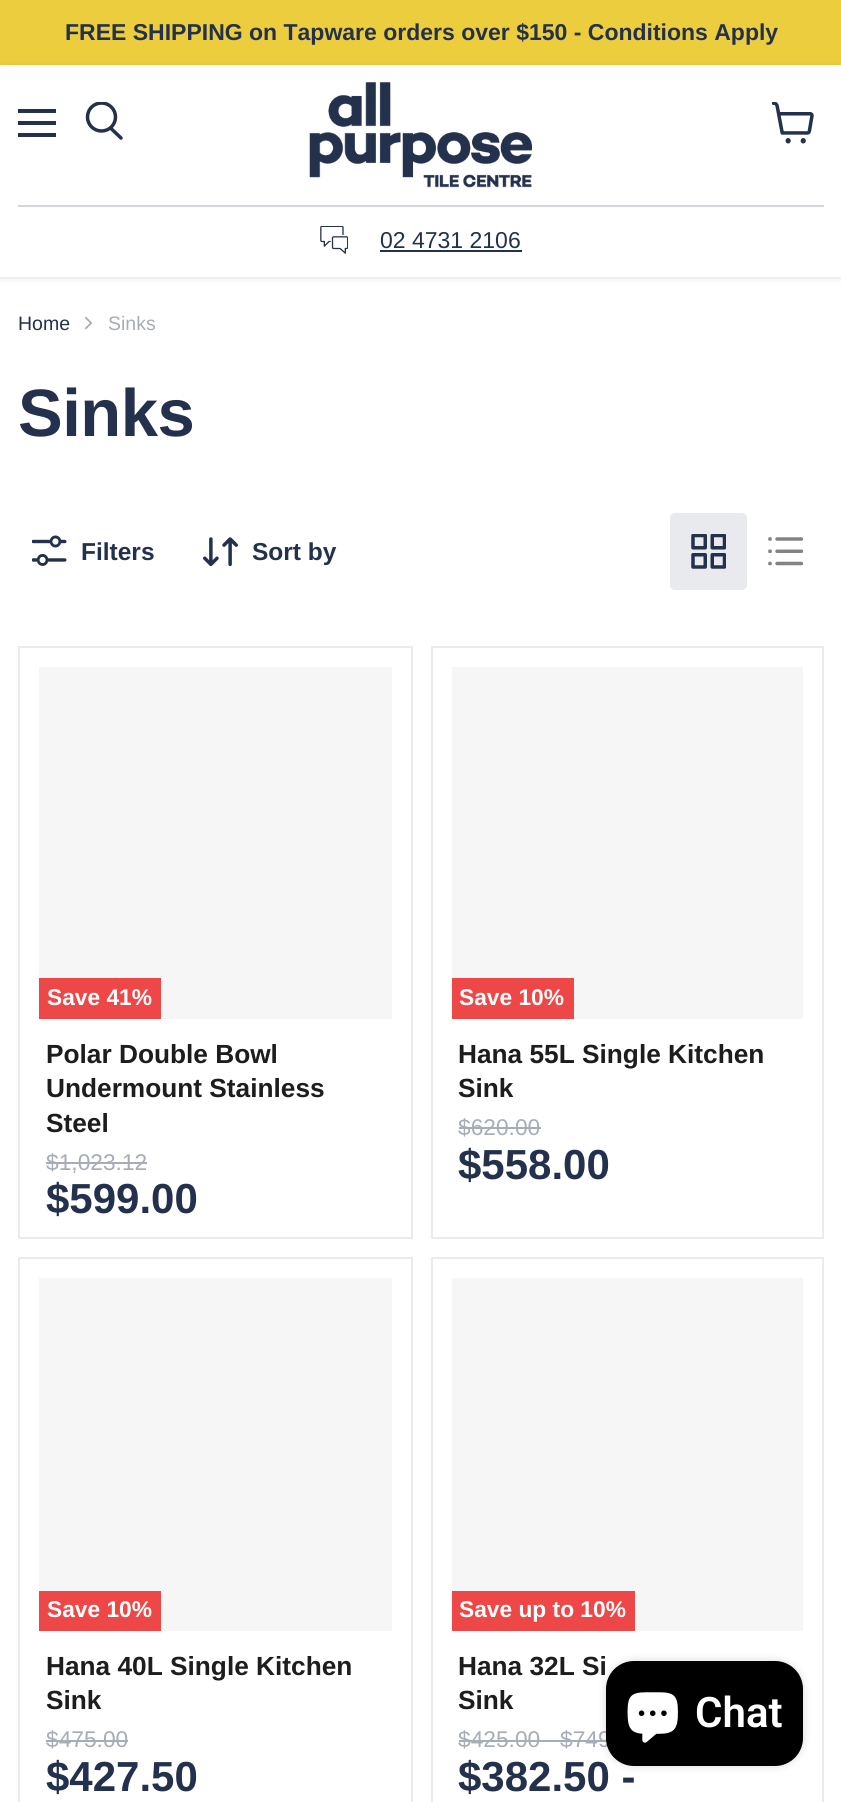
#include <cairo.h>
#include <math.h>
#include <stddef.h>

typedef struct { double x, y; const char *s; } line_t;
typedef struct { double x, y, w, h; unsigned color; } box_t;

static void ink(cairo_t *ctx, unsigned color) {
    cairo_set_source_rgb(ctx, (color >> 16) / 255.0, (color >> 8 & 255) / 255.0, (color & 255) / 255.0);
}

static void write_spaced(cairo_t *ctx, double x, double y, const char *s, double letter, double word) {
    cairo_move_to(ctx, x, y);
    while (*s) {
        char ch[5] = {0};
        int n = 0;
        do ch[n++] = *s++; while ((*s & 0xC0) == 0x80);
        cairo_show_text(ctx, ch);
        cairo_rel_move_to(ctx, letter + word * (*ch == ' '), 0);
    }
}

static void round_path(cairo_t *ctx, double x, double y, double w, double h, double r) {
    cairo_new_sub_path(ctx);
    cairo_arc(ctx, x + w - r, y + h - r, r, 0, M_PI / 2);
    cairo_arc(ctx, x + r, y + h - r, r, M_PI / 2, M_PI);
    cairo_arc(ctx, x + r, y + r, r, M_PI, 1.5 * M_PI);
    cairo_arc(ctx, x + w - r, y + r, r, 1.5 * M_PI, 2 * M_PI);
    cairo_close_path(ctx);
}

static void blur_box(cairo_t *ctx, double x, double y, double w, double h, double r, double blur, double alpha) {
    cairo_push_group_with_content(ctx, CAIRO_CONTENT_ALPHA);
    cairo_set_operator(ctx, CAIRO_OPERATOR_SOURCE);
    for (int i = 15; i >= -15 && fmin(w, h) + blur * i / 3 > 0; i -= 2) {
        double e = blur * i / 6;
        cairo_set_source_rgba(ctx, 0, 0, 0, alpha * erfc((i - 1) / 8.5) / 2);
        round_path(ctx, x - e, y - e, w + 2 * e, h + 2 * e, fmax(0, fmin(r + e + blur * .6, fmin(w, h) / 2 + e)));
        cairo_fill(ctx);
    }
    cairo_pattern_t *soft = cairo_pop_group(ctx);
    cairo_mask(ctx, soft);
    cairo_pattern_destroy(soft);
}

static void paste(cairo_t *ctx, const char *path, double x, double y, double w, double h) {
    cairo_surface_t *image = cairo_image_surface_create_from_png(path);
    cairo_save(ctx);
    cairo_set_source_surface(ctx, image, x, y);
    cairo_rectangle(ctx, x, y, w, h);
    cairo_fill(ctx);
    cairo_restore(ctx);
    cairo_surface_destroy(image);
}

int main(void) {
    cairo_surface_t *surface = cairo_image_surface_create(CAIRO_FORMAT_RGB24, 841, 1802);
    cairo_t *ctx = cairo_create(surface);
    cairo_font_options_t *options = cairo_font_options_create();
    cairo_font_options_set_hint_metrics(options, CAIRO_HINT_METRICS_OFF);
    cairo_font_options_set_hint_style(options, CAIRO_HINT_STYLE_NONE);
    cairo_set_font_options(ctx, options);
    cairo_set_miter_limit(ctx, 4);
    ink(ctx, 0xFFFFFF);
    cairo_paint(ctx);
    ink(ctx, 0xECCD3D);
    cairo_rectangle(ctx, 0, 0, 841, 65);
    cairo_fill(ctx);
    cairo_select_font_face(ctx, "Liberation Sans", CAIRO_FONT_SLANT_NORMAL, CAIRO_FONT_WEIGHT_BOLD);
    cairo_set_font_size(ctx, 23);
    ink(ctx, 0x23314C);
    cairo_move_to(ctx, 65, 40);
    cairo_show_text(ctx, "FREE SHIPPING on Tapware orders over $150 - Conditions Apply");
    ink(ctx, 0x808080);
    blur_box(ctx, 0, 67, 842, 211, 0, 3.5, 0.25);
    {
        static const box_t items[] = {
            {0, 65, 841, 212, 0xFFFFFF},
            {18, 109, 38, 4, 0x23314C},
            {18, 121, 38, 4, 0x23314C},
            {18, 133, 38, 4, 0x23314C},
        };
        for (size_t i = 0; i < sizeof items / sizeof *items; i++) {
            ink(ctx, items[i].color);
            cairo_rectangle(ctx, items[i].x, items[i].y, items[i].w, items[i].h);
            cairo_fill(ctx);
        }
    }
    cairo_new_path(ctx);
    cairo_move_to(ctx, 121, 138);
    cairo_line_to(ctx, 111, 128.5);
    cairo_set_line_width(ctx, 3.5);
    cairo_set_line_cap(ctx, CAIRO_LINE_CAP_ROUND);
    cairo_stroke(ctx);
    cairo_save(ctx);
    cairo_rectangle(ctx, 84, 102, 40, 42);
    cairo_clip(ctx);
    cairo_arc(ctx, 101.5, 117, 14, 0, 2 * M_PI);
    cairo_set_line_cap(ctx, CAIRO_LINE_CAP_BUTT);
    cairo_stroke(ctx);
    cairo_restore(ctx);
    paste(ctx, "media/1.png", 772, 102, 42, 42);
    paste(ctx, "media/2.png", 309, 82, 223, 106);
    ink(ctx, 0xD3D6DB);
    cairo_rectangle(ctx, 18, 205, 806, 2);
    cairo_fill(ctx);
    paste(ctx, "media/3.png", 320, 226, 28, 28);
    cairo_select_font_face(ctx, "Liberation Sans", CAIRO_FONT_SLANT_NORMAL, CAIRO_FONT_WEIGHT_NORMAL);
    ink(ctx, 0x23314C);
    cairo_move_to(ctx, 380, 248);
    cairo_show_text(ctx, "02 4731 2106");
    cairo_rectangle(ctx, 380, 250, 142, 2);
    cairo_fill(ctx);
    cairo_set_font_size(ctx, 19.5);
    cairo_move_to(ctx, 18, 330);
    cairo_show_text(ctx, "Home");
    paste(ctx, "media/4.png", 84, 316, 9, 14);
    ink(ctx, 0xA7ADB7);
    cairo_move_to(ctx, 108, 330);
    cairo_show_text(ctx, "Sinks");
    cairo_select_font_face(ctx, "Liberation Sans", CAIRO_FONT_SLANT_NORMAL, CAIRO_FONT_WEIGHT_BOLD);
    cairo_set_font_size(ctx, 67);
    ink(ctx, 0x23314C);
    write_spaced(ctx, 18, 436, "Sinks", -0.5, 0);
    paste(ctx, "media/5.png", 32, 535, 35, 31);
    cairo_set_font_size(ctx, 24.5);
    cairo_move_to(ctx, 81, 560);
    cairo_show_text(ctx, "Filters");
    paste(ctx, "media/6.png", 203, 537, 35, 30);
    cairo_move_to(ctx, 252, 560);
    cairo_show_text(ctx, "Sort by");
    ink(ctx, 0xE9EAED);
    round_path(ctx, 670, 513, 77, 77, 5);
    cairo_fill(ctx);
    paste(ctx, "media/7.png", 691, 534, 35, 35);
    paste(ctx, "media/8.png", 768, 537, 35, 29);
    cairo_rectangle(ctx, 19, 647, 393, 591);
    ink(ctx, 0xEBEBEB);
    cairo_set_line_width(ctx, 2);
    cairo_set_line_cap(ctx, CAIRO_LINE_CAP_BUTT);
    cairo_stroke(ctx);
    ink(ctx, 0xF6F6F6);
    cairo_rectangle(ctx, 39, 667, 353, 352);
    cairo_fill(ctx);
    ink(ctx, 0xED4748);
    cairo_rectangle(ctx, 39, 978, 122, 41);
    cairo_fill(ctx);
    cairo_set_font_size(ctx, 22.75);
    ink(ctx, 0xFFFFFF);
    cairo_move_to(ctx, 47, 1005);
    cairo_show_text(ctx, "Save 41%");
    cairo_set_font_size(ctx, 26.25);
    ink(ctx, 0x1D1D1D);
    {
        static const line_t items[] = {
            {46, 1063, "Polar Double Bowl"},
            {46, 1097, "Undermount Stainless"},
            {46, 1132, "Steel"},
        };
        for (size_t i = 0; i < sizeof items / sizeof *items; i++) {
            cairo_move_to(ctx, items[i].x, items[i].y);
            cairo_show_text(ctx, items[i].s);
        }
    }
    cairo_select_font_face(ctx, "Liberation Sans", CAIRO_FONT_SLANT_NORMAL, CAIRO_FONT_WEIGHT_NORMAL);
    cairo_set_font_size(ctx, 22.75);
    ink(ctx, 0xA7ADB7);
    cairo_move_to(ctx, 46, 1170);
    cairo_show_text(ctx, "$1,023.12");
    cairo_rectangle(ctx, 46, 1162, 101, 2);
    cairo_fill(ctx);
    cairo_select_font_face(ctx, "Liberation Sans", CAIRO_FONT_SLANT_NORMAL, CAIRO_FONT_WEIGHT_BOLD);
    cairo_set_font_size(ctx, 42);
    ink(ctx, 0x23314C);
    cairo_move_to(ctx, 46, 1213);
    cairo_show_text(ctx, "$599.00");
    cairo_rectangle(ctx, 432, 647, 391, 591);
    ink(ctx, 0xEBEBEB);
    cairo_stroke(ctx);
    ink(ctx, 0xF6F6F6);
    cairo_rectangle(ctx, 452, 667, 351, 352);
    cairo_fill(ctx);
    ink(ctx, 0xED4748);
    cairo_rectangle(ctx, 452, 978, 122, 41);
    cairo_fill(ctx);
    cairo_set_font_size(ctx, 22.75);
    ink(ctx, 0xFFFFFF);
    cairo_move_to(ctx, 459, 1005);
    cairo_show_text(ctx, "Save 10%");
    cairo_set_font_size(ctx, 26.25);
    ink(ctx, 0x1D1D1D);
    cairo_move_to(ctx, 458, 1063);
    cairo_show_text(ctx, "Hana 55L Single Kitchen");
    cairo_move_to(ctx, 458, 1097);
    cairo_show_text(ctx, "Sink");
    cairo_select_font_face(ctx, "Liberation Sans", CAIRO_FONT_SLANT_NORMAL, CAIRO_FONT_WEIGHT_NORMAL);
    cairo_set_font_size(ctx, 22.75);
    ink(ctx, 0xA7ADB7);
    cairo_move_to(ctx, 458, 1135);
    cairo_show_text(ctx, "$620.00");
    cairo_rectangle(ctx, 459, 1127, 82, 2);
    cairo_fill(ctx);
    cairo_select_font_face(ctx, "Liberation Sans", CAIRO_FONT_SLANT_NORMAL, CAIRO_FONT_WEIGHT_BOLD);
    cairo_set_font_size(ctx, 42);
    ink(ctx, 0x23314C);
    cairo_move_to(ctx, 458, 1179);
    cairo_show_text(ctx, "$558.00");
    cairo_rectangle(ctx, 19, 1258, 393, 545);
    ink(ctx, 0xEBEBEB);
    cairo_stroke(ctx);
    ink(ctx, 0xF6F6F6);
    cairo_rectangle(ctx, 39, 1278, 353, 353);
    cairo_fill(ctx);
    ink(ctx, 0xED4748);
    cairo_rectangle(ctx, 39, 1591, 122, 40);
    cairo_fill(ctx);
    cairo_set_font_size(ctx, 22.75);
    ink(ctx, 0xFFFFFF);
    cairo_move_to(ctx, 47, 1617);
    cairo_show_text(ctx, "Save 10%");
    cairo_set_font_size(ctx, 26.25);
    ink(ctx, 0x1D1D1D);
    cairo_move_to(ctx, 46, 1675);
    cairo_show_text(ctx, "Hana 40L Single Kitchen");
    cairo_move_to(ctx, 46, 1709);
    cairo_show_text(ctx, "Sink");
    cairo_select_font_face(ctx, "Liberation Sans", CAIRO_FONT_SLANT_NORMAL, CAIRO_FONT_WEIGHT_NORMAL);
    cairo_set_font_size(ctx, 22.75);
    ink(ctx, 0xA7ADB7);
    cairo_move_to(ctx, 46, 1747);
    cairo_show_text(ctx, "$475.00");
    cairo_rectangle(ctx, 46, 1740, 82, 2);
    cairo_fill(ctx);
    cairo_select_font_face(ctx, "Liberation Sans", CAIRO_FONT_SLANT_NORMAL, CAIRO_FONT_WEIGHT_BOLD);
    cairo_set_font_size(ctx, 42);
    ink(ctx, 0x23314C);
    cairo_move_to(ctx, 46, 1791);
    cairo_show_text(ctx, "$427.50");
    cairo_rectangle(ctx, 432, 1258, 391, 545);
    ink(ctx, 0xEBEBEB);
    cairo_stroke(ctx);
    ink(ctx, 0xF6F6F6);
    cairo_rectangle(ctx, 452, 1278, 351, 353);
    cairo_fill(ctx);
    ink(ctx, 0xED4748);
    cairo_rectangle(ctx, 452, 1591, 183, 40);
    cairo_fill(ctx);
    cairo_set_font_size(ctx, 22.75);
    ink(ctx, 0xFFFFFF);
    cairo_move_to(ctx, 459, 1617);
    cairo_show_text(ctx, "Save up to 10%");
    cairo_set_font_size(ctx, 26.25);
    ink(ctx, 0x1D1D1D);
    cairo_move_to(ctx, 458, 1675);
    cairo_show_text(ctx, "Hana 32L Si");
    cairo_move_to(ctx, 458, 1709);
    cairo_show_text(ctx, "Sink");
    cairo_select_font_face(ctx, "Liberation Sans", CAIRO_FONT_SLANT_NORMAL, CAIRO_FONT_WEIGHT_NORMAL);
    cairo_set_font_size(ctx, 22.75);
    ink(ctx, 0xA7ADB7);
    cairo_move_to(ctx, 458, 1747);
    cairo_show_text(ctx, "$425.00");
    cairo_rectangle(ctx, 459, 1740, 101, 2);
    cairo_fill(ctx);
    cairo_move_to(ctx, 560, 1747);
    cairo_show_text(ctx, "$749");
    cairo_rectangle(ctx, 560, 1740, 47, 2);
    cairo_fill(ctx);
    cairo_select_font_face(ctx, "Liberation Sans", CAIRO_FONT_SLANT_NORMAL, CAIRO_FONT_WEIGHT_BOLD);
    cairo_set_font_size(ctx, 42);
    ink(ctx, 0x23314C);
    cairo_move_to(ctx, 458, 1791);
    cairo_show_text(ctx, "$382.50 -");
    ink(ctx, 0x000000);
    blur_box(ctx, 606, 1661, 197, 105, 28, 4.5, 0.15);
    ink(ctx, 0x000000);
    round_path(ctx, 606, 1661, 197, 105, 28);
    cairo_fill(ctx);
    paste(ctx, "media/9.png", 627, 1692, 51, 51);
    cairo_select_font_face(ctx, "Roboto SemiBold", CAIRO_FONT_SLANT_NORMAL, CAIRO_FONT_WEIGHT_NORMAL);
    ink(ctx, 0xFFFFFF);
    cairo_move_to(ctx, 695, 1727);
    cairo_show_text(ctx, "Chat");
    cairo_surface_write_to_png(surface, "image.png");
    cairo_font_options_destroy(options);
    cairo_destroy(ctx);
    cairo_surface_destroy(surface);
    return 0;
}
